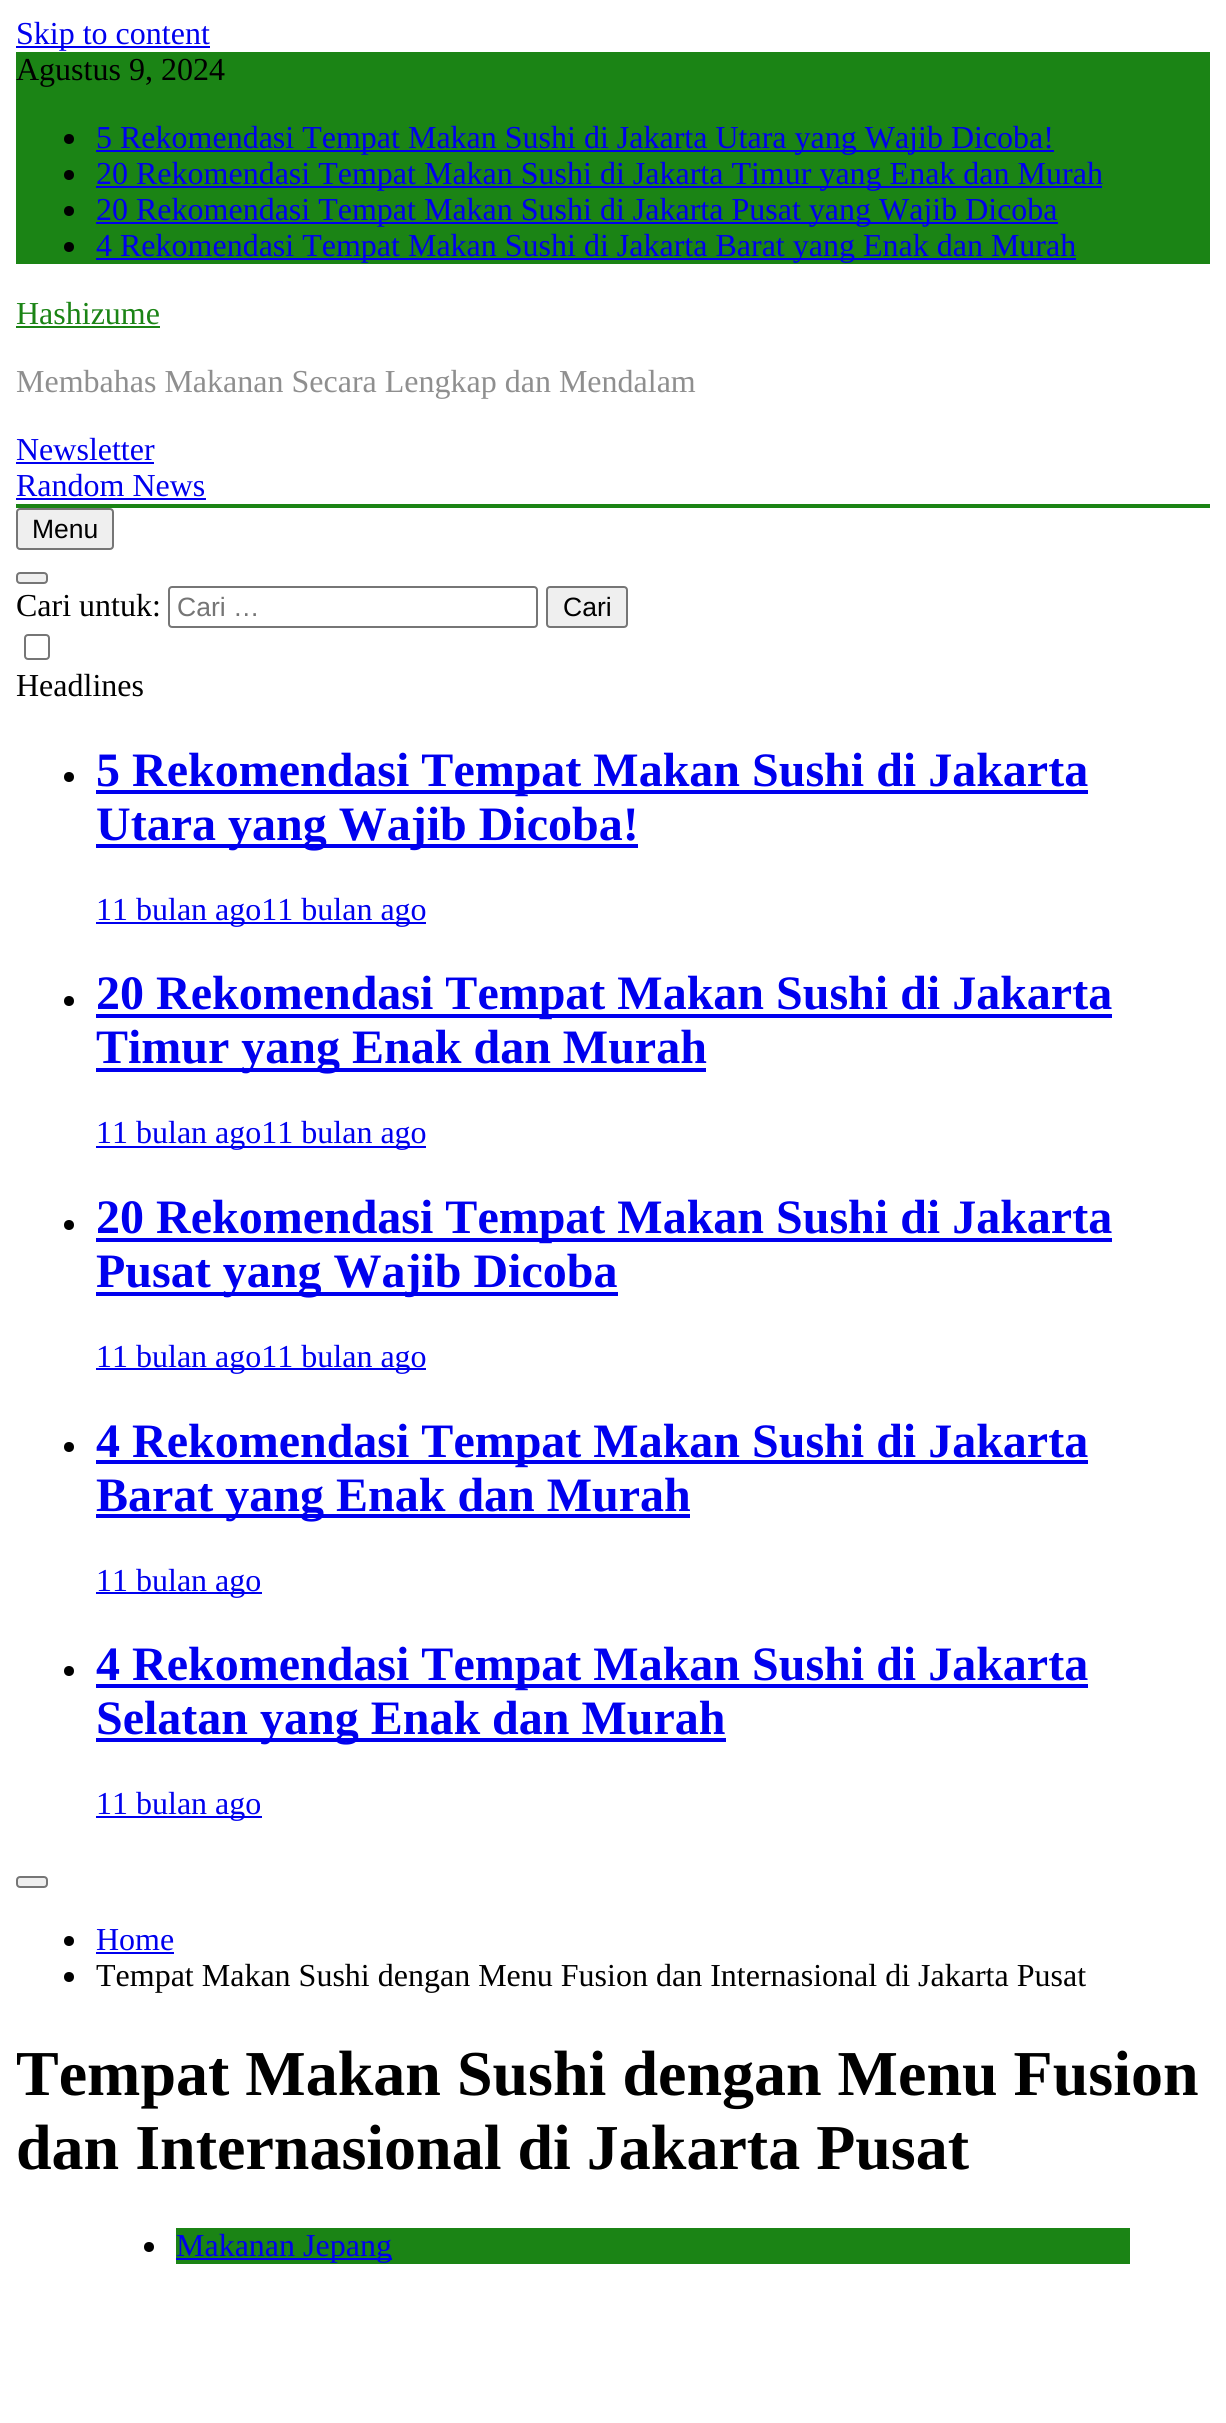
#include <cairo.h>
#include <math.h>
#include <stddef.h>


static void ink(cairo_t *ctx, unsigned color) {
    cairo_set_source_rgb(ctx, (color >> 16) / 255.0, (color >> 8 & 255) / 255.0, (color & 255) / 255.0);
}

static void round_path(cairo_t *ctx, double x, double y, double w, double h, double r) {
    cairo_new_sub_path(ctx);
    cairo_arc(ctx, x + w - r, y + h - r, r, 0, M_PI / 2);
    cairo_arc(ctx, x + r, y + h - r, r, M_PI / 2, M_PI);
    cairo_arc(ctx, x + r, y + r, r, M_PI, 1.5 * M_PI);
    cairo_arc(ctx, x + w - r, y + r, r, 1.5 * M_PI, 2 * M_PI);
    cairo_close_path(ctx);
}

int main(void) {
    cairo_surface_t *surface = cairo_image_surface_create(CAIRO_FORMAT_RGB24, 1226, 2423);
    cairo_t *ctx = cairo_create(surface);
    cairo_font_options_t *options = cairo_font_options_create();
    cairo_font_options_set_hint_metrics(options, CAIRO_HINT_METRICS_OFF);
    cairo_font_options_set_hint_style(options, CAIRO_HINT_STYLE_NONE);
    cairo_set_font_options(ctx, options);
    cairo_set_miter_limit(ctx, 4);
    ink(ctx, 0xFFFFFF);
    cairo_paint(ctx);
    ink(ctx, 0x0000EE);
    cairo_rectangle(ctx, 16, 46, 194, 2);
    cairo_fill(ctx);
    cairo_select_font_face(ctx, "Liberation Serif", CAIRO_FONT_SLANT_NORMAL, CAIRO_FONT_WEIGHT_NORMAL);
    cairo_set_font_size(ctx, 32);
    cairo_move_to(ctx, 16, 44);
    cairo_show_text(ctx, "Skip to content");
    ink(ctx, 0x1B8415);
    cairo_rectangle(ctx, 16, 52, 1194, 212);
    cairo_fill(ctx);
    ink(ctx, 0x000000);
    cairo_move_to(ctx, 16, 80);
    cairo_show_text(ctx, "Agustus 9, 2024");
    cairo_new_path(ctx);
    cairo_arc(ctx, 69, 139, 5, 0, 2 * M_PI);
    cairo_fill(ctx);
    ink(ctx, 0x0000EE);
    cairo_rectangle(ctx, 96, 150, 958, 2);
    cairo_fill(ctx);
    cairo_move_to(ctx, 96, 148);
    cairo_show_text(ctx, "5 Rekomendasi Tempat Makan Sushi di Jakarta Utara yang Wajib Dicoba!");
    ink(ctx, 0x000000);
    cairo_new_path(ctx);
    cairo_arc(ctx, 69, 175, 5, 0, 2 * M_PI);
    cairo_fill(ctx);
    ink(ctx, 0x0000EE);
    cairo_rectangle(ctx, 96, 186, 1006, 2);
    cairo_fill(ctx);
    cairo_move_to(ctx, 96, 184);
    cairo_show_text(ctx, "20 Rekomendasi Tempat Makan Sushi di Jakarta Timur yang Enak dan Murah");
    ink(ctx, 0x000000);
    cairo_new_path(ctx);
    cairo_arc(ctx, 69, 211, 5, 0, 2 * M_PI);
    cairo_fill(ctx);
    ink(ctx, 0x0000EE);
    cairo_rectangle(ctx, 96, 222, 962, 2);
    cairo_fill(ctx);
    cairo_move_to(ctx, 96, 220);
    cairo_show_text(ctx, "20 Rekomendasi Tempat Makan Sushi di Jakarta Pusat yang Wajib Dicoba");
    ink(ctx, 0x000000);
    cairo_new_path(ctx);
    cairo_arc(ctx, 69, 247, 5, 0, 2 * M_PI);
    cairo_fill(ctx);
    ink(ctx, 0x0000EE);
    cairo_rectangle(ctx, 96, 258, 980, 2);
    cairo_fill(ctx);
    cairo_move_to(ctx, 96, 256);
    cairo_show_text(ctx, "4 Rekomendasi Tempat Makan Sushi di Jakarta Barat yang Enak dan Murah");
    ink(ctx, 0x1B8415);
    cairo_move_to(ctx, 16, 324);
    cairo_show_text(ctx, "Hashizume");
    cairo_rectangle(ctx, 16, 326, 144, 2);
    cairo_fill(ctx);
    ink(ctx, 0x8F8F8F);
    cairo_move_to(ctx, 16, 392);
    cairo_show_text(ctx, "Membahas Makanan Secara Lengkap dan Mendalam");
    ink(ctx, 0x0000EE);
    cairo_move_to(ctx, 16, 460);
    cairo_show_text(ctx, "Newsletter");
    cairo_rectangle(ctx, 16, 462, 138, 2);
    cairo_fill(ctx);
    cairo_move_to(ctx, 16, 496);
    cairo_show_text(ctx, "Random News");
    cairo_rectangle(ctx, 16, 498, 190, 2);
    cairo_fill(ctx);
    ink(ctx, 0x1B8415);
    cairo_rectangle(ctx, 16, 504, 1194, 4);
    cairo_fill(ctx);
    ink(ctx, 0xEFEFEF);
    round_path(ctx, 17, 509, 96, 40, 3);
    cairo_fill_preserve(ctx);
    ink(ctx, 0x767676);
    cairo_stroke(ctx);
    cairo_select_font_face(ctx, "Liberation Sans", CAIRO_FONT_SLANT_NORMAL, CAIRO_FONT_WEIGHT_NORMAL);
    cairo_set_font_size(ctx, 26.5);
    ink(ctx, 0x000000);
    cairo_move_to(ctx, 32, 538);
    cairo_show_text(ctx, "Menu");
    ink(ctx, 0xEFEFEF);
    round_path(ctx, 17, 573, 30, 10, 3);
    cairo_fill_preserve(ctx);
    ink(ctx, 0x767676);
    cairo_stroke(ctx);
    cairo_select_font_face(ctx, "Liberation Serif", CAIRO_FONT_SLANT_NORMAL, CAIRO_FONT_WEIGHT_NORMAL);
    cairo_set_font_size(ctx, 32);
    ink(ctx, 0x000000);
    cairo_move_to(ctx, 16, 616);
    cairo_show_text(ctx, "Cari untuk:");
    round_path(ctx, 169, 587, 368, 40, 3);
    ink(ctx, 0x767676);
    cairo_stroke(ctx);
    cairo_select_font_face(ctx, "Liberation Sans", CAIRO_FONT_SLANT_NORMAL, CAIRO_FONT_WEIGHT_NORMAL);
    cairo_set_font_size(ctx, 26.5);
    ink(ctx, 0x757575);
    cairo_move_to(ctx, 177, 616);
    cairo_show_text(ctx, "Cari …");
    ink(ctx, 0xEFEFEF);
    round_path(ctx, 547, 587, 80, 40, 3);
    cairo_fill_preserve(ctx);
    ink(ctx, 0x767676);
    cairo_stroke(ctx);
    ink(ctx, 0x000000);
    cairo_move_to(ctx, 563, 616);
    cairo_show_text(ctx, "Cari");
    round_path(ctx, 25, 635, 24, 24, 3);
    ink(ctx, 0x767676);
    cairo_stroke(ctx);
    cairo_select_font_face(ctx, "Liberation Serif", CAIRO_FONT_SLANT_NORMAL, CAIRO_FONT_WEIGHT_NORMAL);
    cairo_set_font_size(ctx, 32);
    ink(ctx, 0x000000);
    cairo_move_to(ctx, 16, 696);
    cairo_show_text(ctx, "Headlines");
    cairo_new_path(ctx);
    cairo_arc(ctx, 69, 777, 5, 0, 2 * M_PI);
    cairo_fill(ctx);
    ink(ctx, 0x0000EE);
    cairo_rectangle(ctx, 96, 790, 992, 4);
    cairo_fill(ctx);
    cairo_select_font_face(ctx, "Liberation Serif", CAIRO_FONT_SLANT_NORMAL, CAIRO_FONT_WEIGHT_BOLD);
    cairo_set_font_size(ctx, 48);
    cairo_move_to(ctx, 96, 786);
    cairo_show_text(ctx, "5 Rekomendasi Tempat Makan Sushi di Jakarta");
    cairo_rectangle(ctx, 96, 844, 542, 4);
    cairo_fill(ctx);
    cairo_move_to(ctx, 96, 840);
    cairo_show_text(ctx, "Utara yang Wajib Dicoba!");
    cairo_rectangle(ctx, 96, 922, 330, 2);
    cairo_fill(ctx);
    cairo_select_font_face(ctx, "Liberation Serif", CAIRO_FONT_SLANT_NORMAL, CAIRO_FONT_WEIGHT_NORMAL);
    cairo_set_font_size(ctx, 32);
    cairo_move_to(ctx, 96, 920);
    cairo_show_text(ctx, "11 bulan ago11 bulan ago");
    ink(ctx, 0x000000);
    cairo_new_path(ctx);
    cairo_arc(ctx, 69, 1001, 5, 0, 2 * M_PI);
    cairo_fill(ctx);
    ink(ctx, 0x0000EE);
    cairo_rectangle(ctx, 96, 1014, 1016, 4);
    cairo_fill(ctx);
    cairo_select_font_face(ctx, "Liberation Serif", CAIRO_FONT_SLANT_NORMAL, CAIRO_FONT_WEIGHT_BOLD);
    cairo_set_font_size(ctx, 48);
    cairo_move_to(ctx, 96, 1009);
    cairo_show_text(ctx, "20 Rekomendasi Tempat Makan Sushi di Jakarta");
    cairo_rectangle(ctx, 96, 1068, 610, 4);
    cairo_fill(ctx);
    cairo_move_to(ctx, 96, 1063);
    cairo_show_text(ctx, "Timur yang Enak dan Murah");
    cairo_rectangle(ctx, 96, 1146, 330, 2);
    cairo_fill(ctx);
    cairo_select_font_face(ctx, "Liberation Serif", CAIRO_FONT_SLANT_NORMAL, CAIRO_FONT_WEIGHT_NORMAL);
    cairo_set_font_size(ctx, 32);
    cairo_move_to(ctx, 96, 1143);
    cairo_show_text(ctx, "11 bulan ago11 bulan ago");
    ink(ctx, 0x000000);
    cairo_new_path(ctx);
    cairo_arc(ctx, 69, 1225, 5, 0, 2 * M_PI);
    cairo_fill(ctx);
    ink(ctx, 0x0000EE);
    cairo_rectangle(ctx, 96, 1238, 1016, 4);
    cairo_fill(ctx);
    cairo_select_font_face(ctx, "Liberation Serif", CAIRO_FONT_SLANT_NORMAL, CAIRO_FONT_WEIGHT_BOLD);
    cairo_set_font_size(ctx, 48);
    cairo_move_to(ctx, 96, 1233);
    cairo_show_text(ctx, "20 Rekomendasi Tempat Makan Sushi di Jakarta");
    cairo_rectangle(ctx, 96, 1292, 522, 4);
    cairo_fill(ctx);
    cairo_move_to(ctx, 96, 1287);
    cairo_show_text(ctx, "Pusat yang Wajib Dicoba");
    cairo_rectangle(ctx, 96, 1368, 330, 2);
    cairo_fill(ctx);
    cairo_select_font_face(ctx, "Liberation Serif", CAIRO_FONT_SLANT_NORMAL, CAIRO_FONT_WEIGHT_NORMAL);
    cairo_set_font_size(ctx, 32);
    cairo_move_to(ctx, 96, 1367);
    cairo_show_text(ctx, "11 bulan ago11 bulan ago");
    ink(ctx, 0x000000);
    cairo_new_path(ctx);
    cairo_arc(ctx, 69, 1447, 5, 0, 2 * M_PI);
    cairo_fill(ctx);
    ink(ctx, 0x0000EE);
    cairo_rectangle(ctx, 96, 1460, 992, 4);
    cairo_fill(ctx);
    cairo_select_font_face(ctx, "Liberation Serif", CAIRO_FONT_SLANT_NORMAL, CAIRO_FONT_WEIGHT_BOLD);
    cairo_set_font_size(ctx, 48);
    cairo_move_to(ctx, 96, 1457);
    cairo_show_text(ctx, "4 Rekomendasi Tempat Makan Sushi di Jakarta");
    cairo_rectangle(ctx, 96, 1514, 594, 4);
    cairo_fill(ctx);
    cairo_move_to(ctx, 96, 1511);
    cairo_show_text(ctx, "Barat yang Enak dan Murah");
    cairo_rectangle(ctx, 96, 1592, 166, 2);
    cairo_fill(ctx);
    cairo_select_font_face(ctx, "Liberation Serif", CAIRO_FONT_SLANT_NORMAL, CAIRO_FONT_WEIGHT_NORMAL);
    cairo_set_font_size(ctx, 32);
    cairo_move_to(ctx, 96, 1591);
    cairo_show_text(ctx, "11 bulan ago");
    ink(ctx, 0x000000);
    cairo_new_path(ctx);
    cairo_arc(ctx, 69, 1671, 5, 0, 2 * M_PI);
    cairo_fill(ctx);
    ink(ctx, 0x0000EE);
    cairo_rectangle(ctx, 96, 1684, 992, 4);
    cairo_fill(ctx);
    cairo_select_font_face(ctx, "Liberation Serif", CAIRO_FONT_SLANT_NORMAL, CAIRO_FONT_WEIGHT_BOLD);
    cairo_set_font_size(ctx, 48);
    cairo_move_to(ctx, 96, 1680);
    cairo_show_text(ctx, "4 Rekomendasi Tempat Makan Sushi di Jakarta");
    cairo_rectangle(ctx, 96, 1738, 630, 4);
    cairo_fill(ctx);
    cairo_move_to(ctx, 96, 1734);
    cairo_show_text(ctx, "Selatan yang Enak dan Murah");
    cairo_rectangle(ctx, 96, 1816, 166, 2);
    cairo_fill(ctx);
    cairo_select_font_face(ctx, "Liberation Serif", CAIRO_FONT_SLANT_NORMAL, CAIRO_FONT_WEIGHT_NORMAL);
    cairo_set_font_size(ctx, 32);
    cairo_move_to(ctx, 96, 1814);
    cairo_show_text(ctx, "11 bulan ago");
    ink(ctx, 0xEFEFEF);
    round_path(ctx, 17, 1877, 30, 10, 3);
    cairo_fill_preserve(ctx);
    ink(ctx, 0x767676);
    cairo_stroke(ctx);
    ink(ctx, 0x000000);
    cairo_arc(ctx, 69, 1941, 5, 0, 2 * M_PI);
    cairo_fill(ctx);
    ink(ctx, 0x0000EE);
    cairo_move_to(ctx, 96, 1950);
    cairo_show_text(ctx, "Home");
    cairo_rectangle(ctx, 96, 1952, 78, 2);
    cairo_fill(ctx);
    ink(ctx, 0x000000);
    cairo_arc(ctx, 69, 1977, 5, 0, 2 * M_PI);
    cairo_fill(ctx);
    cairo_move_to(ctx, 96, 1986);
    cairo_show_text(ctx, "Tempat Makan Sushi dengan Menu Fusion dan Internasional di Jakarta Pusat");
    cairo_select_font_face(ctx, "Liberation Serif", CAIRO_FONT_SLANT_NORMAL, CAIRO_FONT_WEIGHT_BOLD);
    cairo_set_font_size(ctx, 64);
    cairo_move_to(ctx, 16, 2095);
    cairo_show_text(ctx, "Tempat Makan Sushi dengan Menu Fusion");
    cairo_move_to(ctx, 16, 2169);
    cairo_show_text(ctx, "dan Internasional di Jakarta Pusat");
    ink(ctx, 0x1B8415);
    cairo_rectangle(ctx, 176, 2228, 954, 36);
    cairo_fill(ctx);
    ink(ctx, 0x000000);
    cairo_arc(ctx, 149, 2247, 5, 0, 2 * M_PI);
    cairo_fill(ctx);
    ink(ctx, 0x0000EE);
    cairo_rectangle(ctx, 176, 2258, 216, 2);
    cairo_fill(ctx);
    cairo_select_font_face(ctx, "Liberation Serif", CAIRO_FONT_SLANT_NORMAL, CAIRO_FONT_WEIGHT_NORMAL);
    cairo_set_font_size(ctx, 32);
    cairo_move_to(ctx, 176, 2256);
    cairo_show_text(ctx, "Makanan Jepang");
    cairo_surface_write_to_png(surface, "image.png");
    cairo_font_options_destroy(options);
    cairo_destroy(ctx);
    cairo_surface_destroy(surface);
    return 0;
}
